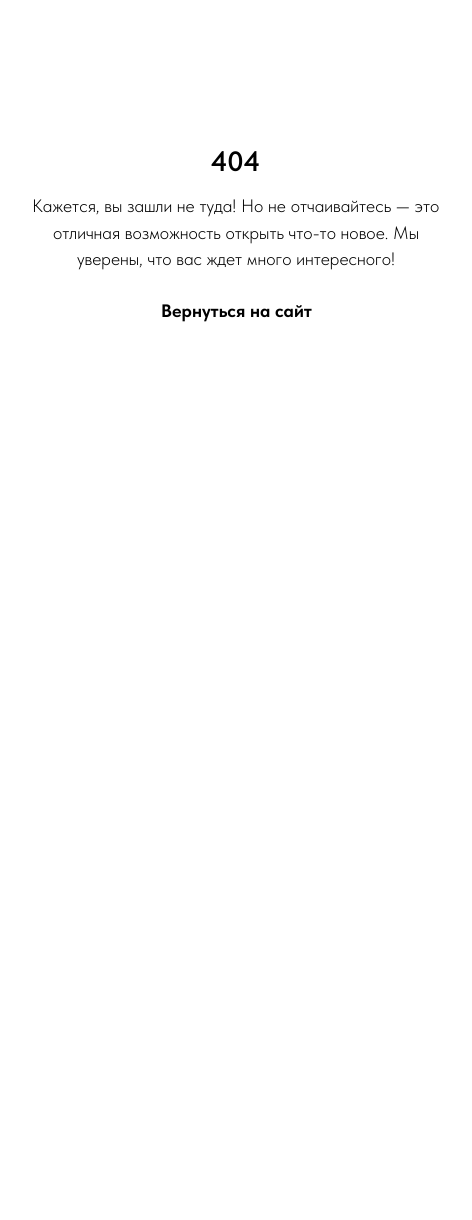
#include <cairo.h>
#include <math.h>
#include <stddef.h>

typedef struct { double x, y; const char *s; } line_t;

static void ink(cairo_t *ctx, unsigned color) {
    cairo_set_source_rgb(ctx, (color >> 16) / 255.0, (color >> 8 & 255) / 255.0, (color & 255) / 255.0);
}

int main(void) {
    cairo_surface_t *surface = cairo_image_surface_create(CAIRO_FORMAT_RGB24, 472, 1220);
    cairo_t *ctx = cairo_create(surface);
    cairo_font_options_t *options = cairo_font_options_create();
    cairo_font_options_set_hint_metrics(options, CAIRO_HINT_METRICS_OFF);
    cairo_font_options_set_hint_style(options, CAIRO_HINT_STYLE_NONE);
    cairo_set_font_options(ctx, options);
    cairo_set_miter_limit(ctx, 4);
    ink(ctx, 0xFFFFFF);
    cairo_paint(ctx);
    cairo_select_font_face(ctx, "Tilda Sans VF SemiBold", CAIRO_FONT_SLANT_NORMAL, CAIRO_FONT_WEIGHT_NORMAL);
    cairo_set_font_size(ctx, 28);
    ink(ctx, 0x000000);
    cairo_move_to(ctx, 211, 171);
    cairo_show_text(ctx, "404");
    cairo_select_font_face(ctx, "Tilda Sans VF Light", CAIRO_FONT_SLANT_NORMAL, CAIRO_FONT_WEIGHT_NORMAL);
    cairo_set_font_size(ctx, 18);
    {
        static const line_t items[] = {
            {32, 212, "Кажется, вы зашли не туда! Но не отчаивайтесь — это"},
            {53, 239, "отличная возможность открыть что-то новое. Мы"},
            {77, 265, "уверены, что вас ждет много интересного!"},
        };
        for (size_t i = 0; i < sizeof items / sizeof *items; i++) {
            cairo_move_to(ctx, items[i].x, items[i].y);
            cairo_show_text(ctx, items[i].s);
        }
    }
    cairo_select_font_face(ctx, "Tilda Sans VF", CAIRO_FONT_SLANT_NORMAL, CAIRO_FONT_WEIGHT_BOLD);
    cairo_move_to(ctx, 161, 317);
    cairo_show_text(ctx, "Вернуться на сайт");
    cairo_surface_write_to_png(surface, "image.png");
    cairo_font_options_destroy(options);
    cairo_destroy(ctx);
    cairo_surface_destroy(surface);
    return 0;
}
